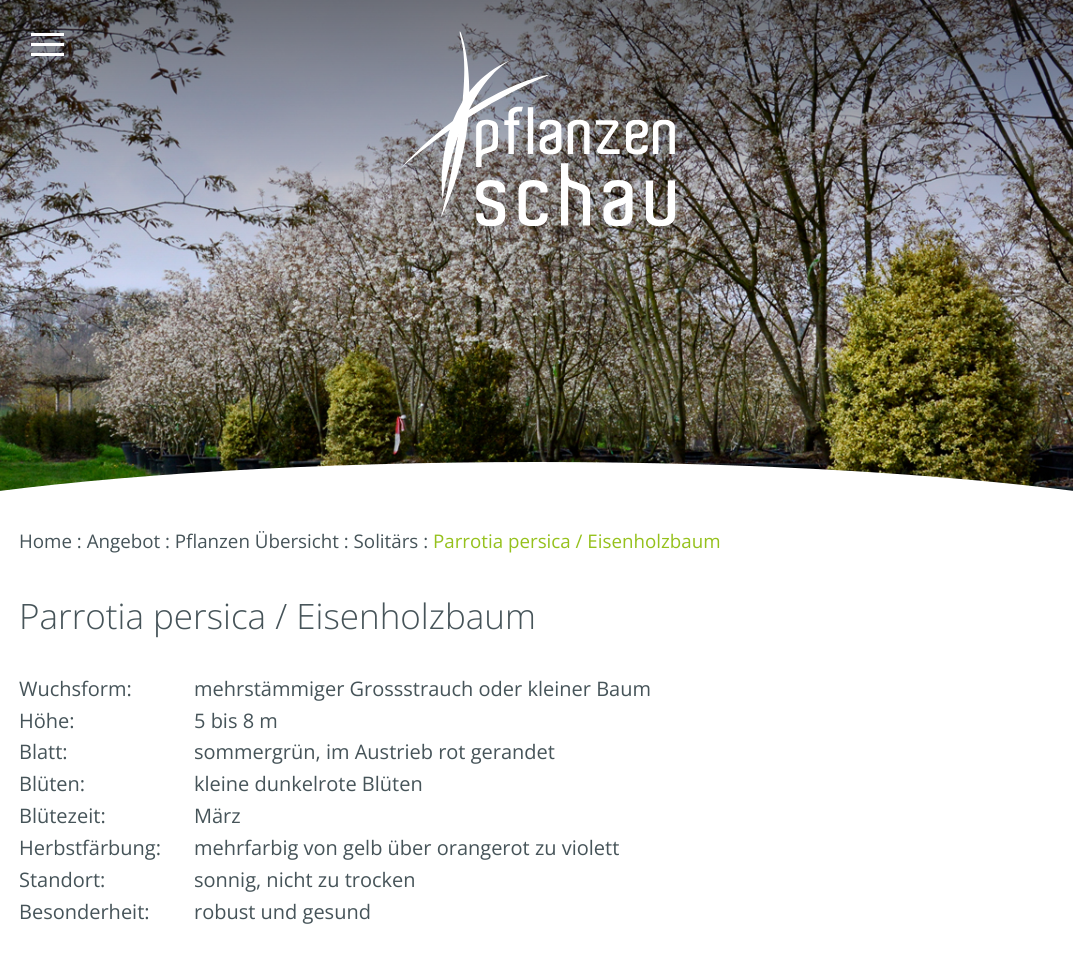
#include <cairo.h>
#include <math.h>
#include <stddef.h>

typedef struct { double x, y; const char *s; } line_t;
typedef struct { double x, y, w, h; unsigned color; } box_t;

static void ink(cairo_t *ctx, unsigned color) {
    cairo_set_source_rgb(ctx, (color >> 16) / 255.0, (color >> 8 & 255) / 255.0, (color & 255) / 255.0);
}

static void paste(cairo_t *ctx, const char *path, double x, double y, double w, double h) {
    cairo_surface_t *image = cairo_image_surface_create_from_png(path);
    cairo_save(ctx);
    cairo_set_source_surface(ctx, image, x, y);
    cairo_rectangle(ctx, x, y, w, h);
    cairo_fill(ctx);
    cairo_restore(ctx);
    cairo_surface_destroy(image);
}

int main(void) {
    cairo_surface_t *surface = cairo_image_surface_create(CAIRO_FORMAT_RGB24, 1073, 978);
    cairo_t *ctx = cairo_create(surface);
    cairo_font_options_t *options = cairo_font_options_create();
    cairo_font_options_set_hint_metrics(options, CAIRO_HINT_METRICS_OFF);
    cairo_font_options_set_hint_style(options, CAIRO_HINT_STYLE_NONE);
    cairo_set_font_options(ctx, options);
    cairo_set_miter_limit(ctx, 4);
    ink(ctx, 0xFFFFFF);
    cairo_paint(ctx);
    paste(ctx, "media/1.png", 0, 0, 1073, 491);
    paste(ctx, "media/2.png", 400, 31, 275, 195);
    cairo_save(ctx);
    cairo_rectangle(ctx, 0, 0, 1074, 563);
    cairo_clip(ctx);
    ink(ctx, 0xFFFFFF);
    cairo_new_path(ctx);
    cairo_move_to(ctx, 537, 462);
    cairo_curve_to(ctx, 982, 462, 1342, 513, 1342, 575);
    cairo_line_to(ctx, 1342, 688);
    cairo_line_to(ctx, -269, 688);
    cairo_line_to(ctx, -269, 575);
    cairo_curve_to(ctx, -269, 513, 92, 462, 537, 462);
    cairo_close_path(ctx);
    cairo_fill(ctx);
    cairo_restore(ctx);
    {
        static const box_t items[] = {
            {31, 33, 33, 3, 0xFFFFFF},
            {31, 43, 33, 3, 0xFFFFFF},
            {31, 53, 33, 3, 0xFFFFFF},
        };
        for (size_t i = 0; i < sizeof items / sizeof *items; i++) {
            ink(ctx, items[i].color);
            cairo_rectangle(ctx, items[i].x, items[i].y, items[i].w, items[i].h);
            cairo_fill(ctx);
        }
    }
    cairo_select_font_face(ctx, "Open Sans", CAIRO_FONT_SLANT_NORMAL, CAIRO_FONT_WEIGHT_NORMAL);
    cairo_set_font_size(ctx, 18.75);
    ink(ctx, 0x465459);
    cairo_move_to(ctx, 19, 548);
    cairo_show_text(ctx, "Home : Angebot : Pflanzen Übersicht : Solitärs :");
    ink(ctx, 0x95C11C);
    cairo_move_to(ctx, 433, 548);
    cairo_show_text(ctx, "Parrotia persica / Eisenholzbaum");
    cairo_select_font_face(ctx, "Open Sans Light", CAIRO_FONT_SLANT_NORMAL, CAIRO_FONT_WEIGHT_NORMAL);
    cairo_set_font_size(ctx, 35);
    ink(ctx, 0x465459);
    cairo_move_to(ctx, 19, 629);
    cairo_show_text(ctx, "Parrotia persica / Eisenholzbaum");
    cairo_select_font_face(ctx, "Open Sans", CAIRO_FONT_SLANT_NORMAL, CAIRO_FONT_WEIGHT_NORMAL);
    cairo_set_font_size(ctx, 20);
    {
        static const line_t items[] = {
            {19, 696, "Wuchsform:"},
            {194, 696, "mehrstämmiger Grossstrauch oder kleiner Baum"},
            {19, 728, "Höhe:"},
            {194, 728, "5 bis 8 m"},
            {19, 759, "Blatt:"},
            {194, 759, "sommergrün, im Austrieb rot gerandet"},
            {19, 791, "Blüten:"},
            {194, 791, "kleine dunkelrote Blüten"},
            {19, 823, "Blütezeit:"},
            {194, 823, "März"},
            {19, 855, "Herbstfärbung:"},
            {194, 855, "mehrfarbig von gelb über orangerot zu violett"},
            {19, 887, "Standort:"},
            {194, 887, "sonnig, nicht zu trocken"},
            {19, 919, "Besonderheit:"},
            {194, 919, "robust und gesund"},
        };
        for (size_t i = 0; i < sizeof items / sizeof *items; i++) {
            cairo_move_to(ctx, items[i].x, items[i].y);
            cairo_show_text(ctx, items[i].s);
        }
    }
    cairo_surface_write_to_png(surface, "image.png");
    cairo_font_options_destroy(options);
    cairo_destroy(ctx);
    cairo_surface_destroy(surface);
    return 0;
}
